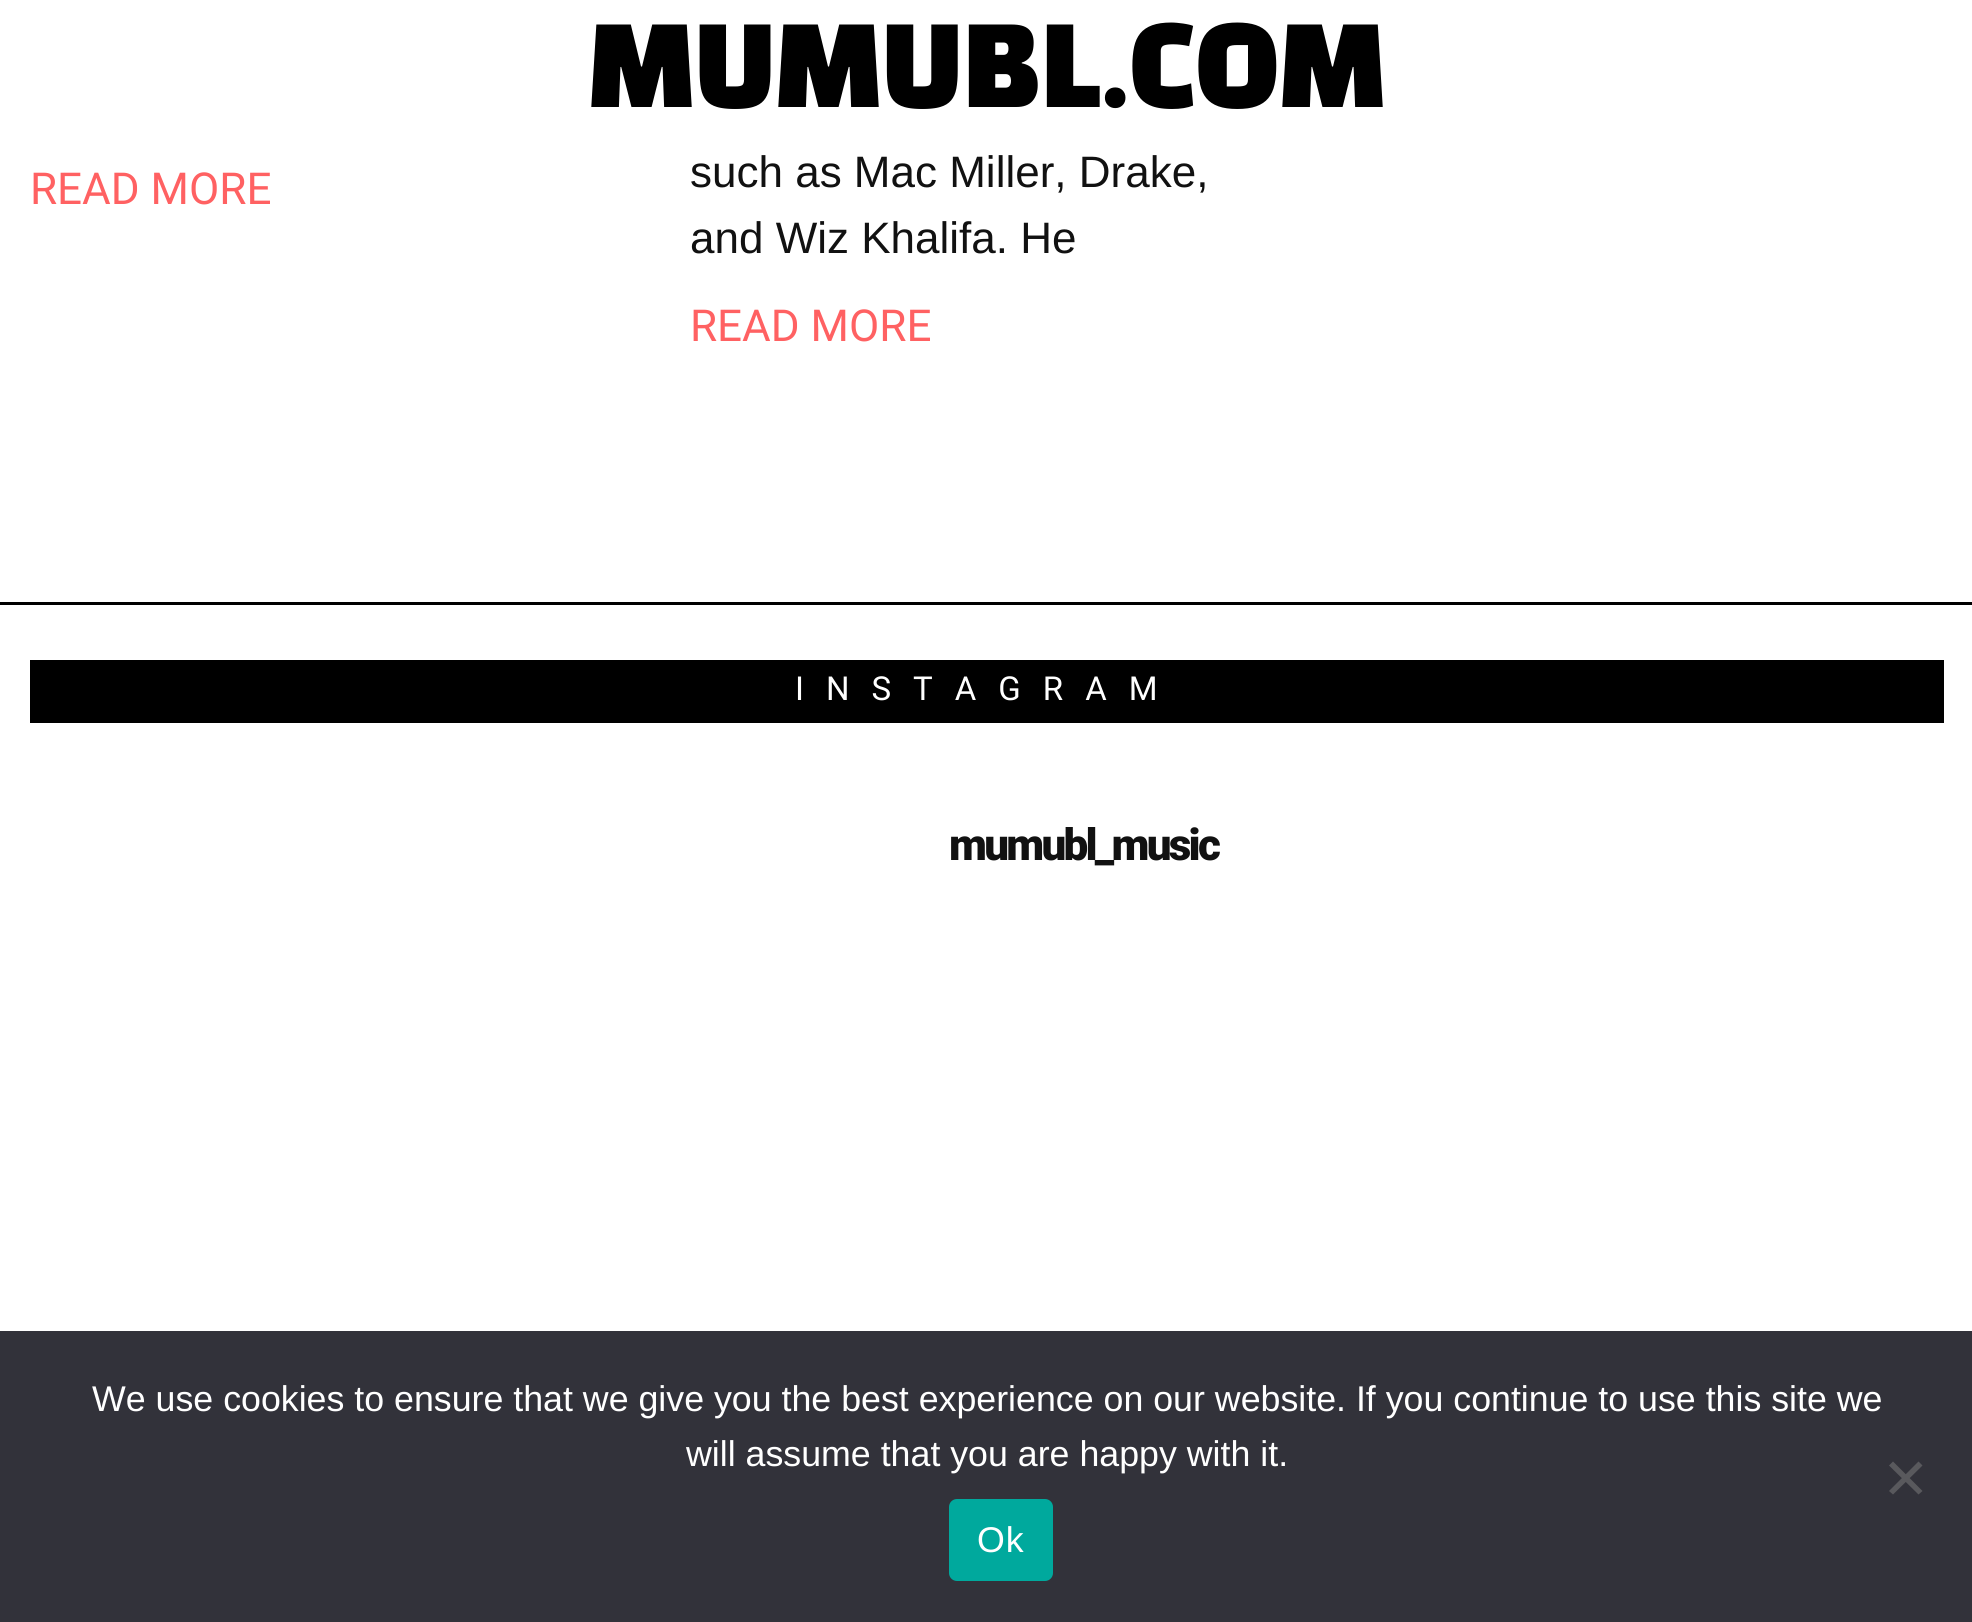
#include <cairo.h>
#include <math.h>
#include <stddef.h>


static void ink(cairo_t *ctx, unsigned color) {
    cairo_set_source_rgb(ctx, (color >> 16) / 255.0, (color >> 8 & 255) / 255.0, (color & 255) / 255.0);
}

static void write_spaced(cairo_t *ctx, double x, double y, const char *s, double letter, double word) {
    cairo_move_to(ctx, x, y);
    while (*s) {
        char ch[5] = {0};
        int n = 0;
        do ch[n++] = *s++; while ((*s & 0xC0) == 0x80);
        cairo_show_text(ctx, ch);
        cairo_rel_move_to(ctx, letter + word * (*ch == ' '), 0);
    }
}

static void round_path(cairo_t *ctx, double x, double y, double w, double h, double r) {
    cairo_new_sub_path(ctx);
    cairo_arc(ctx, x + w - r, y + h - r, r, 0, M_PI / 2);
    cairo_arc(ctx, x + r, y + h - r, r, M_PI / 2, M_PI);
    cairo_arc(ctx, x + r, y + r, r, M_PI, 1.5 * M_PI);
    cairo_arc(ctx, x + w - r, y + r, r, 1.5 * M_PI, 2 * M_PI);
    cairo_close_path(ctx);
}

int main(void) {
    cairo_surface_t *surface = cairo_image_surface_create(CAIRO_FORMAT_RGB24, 1972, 1622);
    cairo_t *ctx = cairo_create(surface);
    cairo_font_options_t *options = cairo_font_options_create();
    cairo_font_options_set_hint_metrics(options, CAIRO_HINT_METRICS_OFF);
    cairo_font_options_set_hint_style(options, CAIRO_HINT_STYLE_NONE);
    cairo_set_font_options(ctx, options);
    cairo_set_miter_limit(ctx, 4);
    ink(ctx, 0xFFFFFF);
    cairo_paint(ctx);
    cairo_select_font_face(ctx, "Black Han Sans Black", CAIRO_FONT_SLANT_NORMAL, CAIRO_FONT_WEIGHT_NORMAL);
    cairo_set_font_size(ctx, 110);
    ink(ctx, 0x000000);
    cairo_move_to(ctx, 588, 107);
    cairo_show_text(ctx, "MUMUBL.COM");
    cairo_select_font_face(ctx, "Roboto", CAIRO_FONT_SLANT_NORMAL, CAIRO_FONT_WEIGHT_NORMAL);
    cairo_set_font_size(ctx, 44);
    ink(ctx, 0xFF6162);
    cairo_move_to(ctx, 30, 204);
    cairo_show_text(ctx, "READ MORE");
    cairo_select_font_face(ctx, "Liberation Sans", CAIRO_FONT_SLANT_NORMAL, CAIRO_FONT_WEIGHT_NORMAL);
    ink(ctx, 0x111111);
    cairo_move_to(ctx, 690, 187);
    cairo_show_text(ctx, "such as Mac Miller, Drake,");
    cairo_move_to(ctx, 690, 253);
    cairo_show_text(ctx, "and Wiz Khalifa. He");
    cairo_select_font_face(ctx, "Roboto", CAIRO_FONT_SLANT_NORMAL, CAIRO_FONT_WEIGHT_NORMAL);
    ink(ctx, 0xFF6162);
    cairo_move_to(ctx, 690, 341);
    cairo_show_text(ctx, "READ MORE");
    ink(ctx, 0x000000);
    cairo_rectangle(ctx, 0, 602, 1972, 3);
    cairo_fill(ctx);
    cairo_rectangle(ctx, 30, 660, 1914, 63);
    cairo_fill(ctx);
    cairo_set_font_size(ctx, 33);
    ink(ctx, 0xFFFFFF);
    write_spaced(ctx, 795, 700, "INSTAGRAM", 22, 0);
    cairo_select_font_face(ctx, "Roboto Black", CAIRO_FONT_SLANT_NORMAL, CAIRO_FONT_WEIGHT_NORMAL);
    cairo_set_font_size(ctx, 44);
    ink(ctx, 0x111111);
    write_spaced(ctx, 949, 860, "mumubl_music", -2.75, 0);
    ink(ctx, 0x32323A);
    cairo_rectangle(ctx, 0, 1331, 1972, 291);
    cairo_fill(ctx);
    cairo_select_font_face(ctx, "Liberation Sans", CAIRO_FONT_SLANT_NORMAL, CAIRO_FONT_WEIGHT_NORMAL);
    cairo_set_font_size(ctx, 35.75);
    ink(ctx, 0xFFFFFF);
    cairo_move_to(ctx, 92, 1411);
    cairo_show_text(ctx, "We use cookies to ensure that we give you the best experience on our website. If you continue to use this site we");
    cairo_move_to(ctx, 686, 1466);
    cairo_show_text(ctx, "will assume that you are happy with it.");
    ink(ctx, 0x59595D);
    cairo_new_path(ctx);
    cairo_move_to(ctx, 1918.5, 1461.5);
    cairo_line_to(ctx, 1922.5, 1465.5);
    cairo_line_to(ctx, 1893, 1494.5);
    cairo_line_to(ctx, 1889, 1491);
    cairo_close_path(ctx);
    cairo_fill(ctx);
    cairo_new_path(ctx);
    cairo_move_to(ctx, 1889, 1465.5);
    cairo_line_to(ctx, 1893, 1461.5);
    cairo_line_to(ctx, 1922.5, 1491);
    cairo_line_to(ctx, 1918.5, 1494.5);
    cairo_close_path(ctx);
    cairo_fill(ctx);
    ink(ctx, 0x00A99D);
    round_path(ctx, 949, 1499, 104, 82, 8);
    cairo_fill(ctx);
    ink(ctx, 0xFFFFFF);
    write_spaced(ctx, 977, 1552, "Ok", 1, 0);
    cairo_surface_write_to_png(surface, "image.png");
    cairo_font_options_destroy(options);
    cairo_destroy(ctx);
    cairo_surface_destroy(surface);
    return 0;
}
